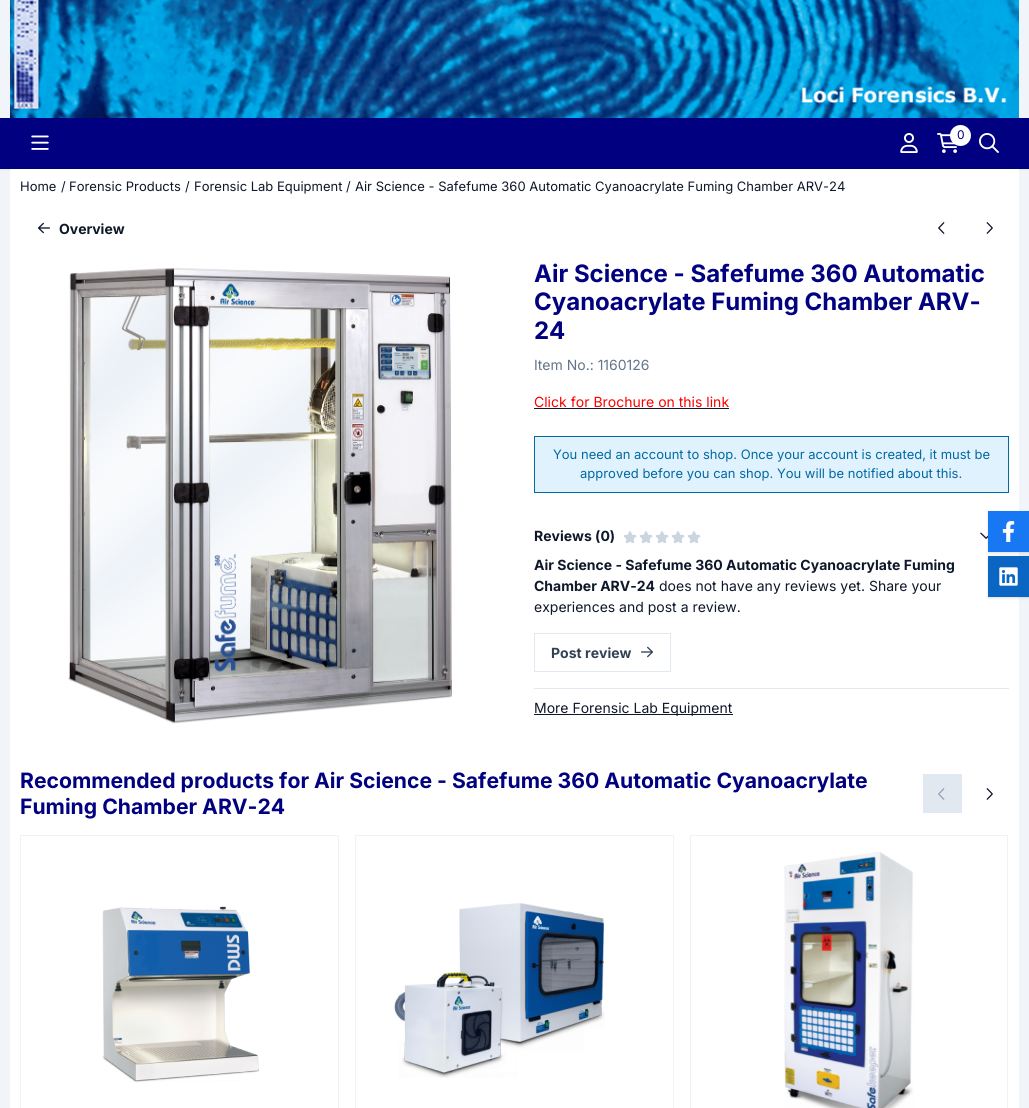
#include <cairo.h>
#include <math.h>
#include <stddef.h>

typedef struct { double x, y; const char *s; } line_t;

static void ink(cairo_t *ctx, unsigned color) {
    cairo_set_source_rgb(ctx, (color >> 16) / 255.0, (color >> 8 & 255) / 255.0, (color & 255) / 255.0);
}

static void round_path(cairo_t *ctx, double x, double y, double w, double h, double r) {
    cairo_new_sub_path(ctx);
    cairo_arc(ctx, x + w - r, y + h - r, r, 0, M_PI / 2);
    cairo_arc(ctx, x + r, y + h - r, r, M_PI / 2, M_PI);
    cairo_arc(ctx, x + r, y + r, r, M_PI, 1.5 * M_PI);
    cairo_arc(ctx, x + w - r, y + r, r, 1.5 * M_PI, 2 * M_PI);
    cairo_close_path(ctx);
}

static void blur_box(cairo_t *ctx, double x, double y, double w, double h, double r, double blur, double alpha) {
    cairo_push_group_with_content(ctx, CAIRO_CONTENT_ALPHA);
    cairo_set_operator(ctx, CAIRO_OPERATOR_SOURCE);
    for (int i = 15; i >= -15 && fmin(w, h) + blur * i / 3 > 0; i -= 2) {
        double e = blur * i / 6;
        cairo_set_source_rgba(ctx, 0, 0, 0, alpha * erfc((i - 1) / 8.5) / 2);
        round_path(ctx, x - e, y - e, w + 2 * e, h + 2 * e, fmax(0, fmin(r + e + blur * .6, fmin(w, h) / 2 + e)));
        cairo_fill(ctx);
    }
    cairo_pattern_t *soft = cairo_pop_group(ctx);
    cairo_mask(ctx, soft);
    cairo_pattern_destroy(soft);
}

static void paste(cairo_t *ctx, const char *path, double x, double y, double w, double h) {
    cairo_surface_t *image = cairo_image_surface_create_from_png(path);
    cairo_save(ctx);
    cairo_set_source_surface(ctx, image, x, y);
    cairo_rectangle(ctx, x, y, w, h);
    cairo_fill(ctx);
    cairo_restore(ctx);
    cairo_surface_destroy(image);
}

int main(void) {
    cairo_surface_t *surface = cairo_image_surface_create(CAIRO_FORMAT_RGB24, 1029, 1108);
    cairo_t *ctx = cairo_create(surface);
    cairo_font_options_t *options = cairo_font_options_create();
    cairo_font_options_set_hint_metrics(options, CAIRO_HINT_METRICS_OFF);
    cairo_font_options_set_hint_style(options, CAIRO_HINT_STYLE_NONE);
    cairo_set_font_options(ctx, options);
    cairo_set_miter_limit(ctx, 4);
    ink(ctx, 0xF1F5F9);
    cairo_paint(ctx);
    ink(ctx, 0x000000);
    blur_box(ctx, 0, 119, 1029, 51, 0, 1, 0.05);
    paste(ctx, "media/1.png", 10, 0, 1009, 118);
    ink(ctx, 0x000080);
    cairo_rectangle(ctx, 0, 118, 1029, 50);
    cairo_fill(ctx);
    ink(ctx, 0x00007A);
    cairo_rectangle(ctx, 0, 168, 1029, 1);
    cairo_fill(ctx);
    paste(ctx, "media/2.png", 31, 135, 18, 15);
    paste(ctx, "media/3.png", 900, 133, 18, 20);
    paste(ctx, "media/4.png", 937, 133, 20, 20);
    ink(ctx, 0xFFFFFF);
    cairo_arc(ctx, 960.5, 135.5, 10.5, 0, 2 * M_PI);
    cairo_fill(ctx);
    cairo_select_font_face(ctx, "Inter", CAIRO_FONT_SLANT_NORMAL, CAIRO_FONT_WEIGHT_NORMAL);
    cairo_set_font_size(ctx, 12);
    ink(ctx, 0x000080);
    cairo_move_to(ctx, 957, 139);
    cairo_show_text(ctx, "0");
    paste(ctx, "media/5.png", 979, 133, 20, 20);
    ink(ctx, 0xFFFFFF);
    cairo_rectangle(ctx, 10, 169, 1009, 939);
    cairo_fill(ctx);
    cairo_set_font_size(ctx, 13);
    ink(ctx, 0x0F172A);
    {
        static const line_t items[] = {
            {20, 191, "Home"},
            {61, 191, "/"},
            {69, 191, "Forensic Products"},
            {185, 191, "/"},
            {194, 191, "Forensic Lab Equipment"},
            {346, 191, "/"},
            {355, 191, "Air Science - Safefume 360 Automatic Cyanoacrylate Fuming Chamber ARV-24"},
        };
        for (size_t i = 0; i < sizeof items / sizeof *items; i++) {
            cairo_move_to(ctx, items[i].x, items[i].y);
            cairo_show_text(ctx, items[i].s);
        }
    }
    paste(ctx, "media/6.png", 38, 222, 12, 12);
    cairo_select_font_face(ctx, "Inter", CAIRO_FONT_SLANT_NORMAL, CAIRO_FONT_WEIGHT_BOLD);
    cairo_set_font_size(ctx, 14);
    cairo_move_to(ctx, 59, 234);
    cairo_show_text(ctx, "Overview");
    paste(ctx, "media/7.png", 938, 222, 7, 12);
    paste(ctx, "media/8.png", 986, 222, 7, 12);
    paste(ctx, "media/9.png", 68, 267, 384, 457);
    cairo_set_font_size(ctx, 24);
    ink(ctx, 0x000080);
    {
        static const line_t items[] = {
            {534, 282, "Air Science - Safefume 360 Automatic"},
            {534, 310, "Cyanoacrylate Fuming Chamber ARV-"},
            {534, 339, "24"},
        };
        for (size_t i = 0; i < sizeof items / sizeof *items; i++) {
            cairo_move_to(ctx, items[i].x, items[i].y);
            cairo_show_text(ctx, items[i].s);
        }
    }
    cairo_select_font_face(ctx, "Inter", CAIRO_FONT_SLANT_NORMAL, CAIRO_FONT_WEIGHT_NORMAL);
    cairo_set_font_size(ctx, 14);
    ink(ctx, 0x64748B);
    cairo_move_to(ctx, 534, 370);
    cairo_show_text(ctx, "Item No.: 1160126");
    ink(ctx, 0xFF0000);
    cairo_move_to(ctx, 534, 407);
    cairo_show_text(ctx, "Click for Brochure on this link");
    ink(ctx, 0x0F172A);
    cairo_rectangle(ctx, 534, 408, 195, 1);
    cairo_fill(ctx);
    ink(ctx, 0xE0F2FE);
    cairo_rectangle(ctx, 534.5, 436.5, 474, 56);
    cairo_fill_preserve(ctx);
    ink(ctx, 0x0369A1);
    cairo_set_line_width(ctx, 1);
    cairo_stroke(ctx);
    cairo_set_font_size(ctx, 13);
    cairo_move_to(ctx, 553, 459);
    cairo_show_text(ctx, "You need an account to shop. Once your account is created, it must be");
    cairo_move_to(ctx, 580, 478);
    cairo_show_text(ctx, "approved before you can shop. You will be notified about this.");
    cairo_select_font_face(ctx, "Inter", CAIRO_FONT_SLANT_NORMAL, CAIRO_FONT_WEIGHT_BOLD);
    cairo_set_font_size(ctx, 14);
    ink(ctx, 0x0F172A);
    cairo_move_to(ctx, 534, 541);
    cairo_show_text(ctx, "Reviews (0)");
    paste(ctx, "media/10.png", 623, 531, 14, 12);
    paste(ctx, "media/10.png", 639, 531, 14, 12);
    paste(ctx, "media/10.png", 655, 531, 14, 12);
    paste(ctx, "media/10.png", 671, 531, 14, 12);
    paste(ctx, "media/10.png", 687, 531, 14, 12);
    paste(ctx, "media/11.png", 980, 532, 8, 7);
    ink(ctx, 0xE2E8F0);
    cairo_rectangle(ctx, 534, 688, 475, 1);
    cairo_fill(ctx);
    ink(ctx, 0x0F172A);
    cairo_move_to(ctx, 534, 570);
    cairo_show_text(ctx, "Air Science - Safefume 360 Automatic Cyanoacrylate Fuming");
    cairo_move_to(ctx, 534, 591);
    cairo_show_text(ctx, "Chamber ARV-24");
    cairo_select_font_face(ctx, "Inter", CAIRO_FONT_SLANT_NORMAL, CAIRO_FONT_WEIGHT_NORMAL);
    cairo_move_to(ctx, 659, 591);
    cairo_show_text(ctx, "does not have any reviews yet. Share your");
    cairo_move_to(ctx, 534, 612);
    cairo_show_text(ctx, "experiences and post a review.");
    cairo_rectangle(ctx, 534.5, 633.5, 136, 38);
    ink(ctx, 0xE2E8F0);
    cairo_stroke(ctx);
    cairo_select_font_face(ctx, "Inter", CAIRO_FONT_SLANT_NORMAL, CAIRO_FONT_WEIGHT_BOLD);
    ink(ctx, 0x334155);
    cairo_move_to(ctx, 551, 658);
    cairo_show_text(ctx, "Post review");
    paste(ctx, "media/12.png", 641, 646, 12, 12);
    ink(ctx, 0x0F172A);
    cairo_rectangle(ctx, 534, 714, 199, 1);
    cairo_fill(ctx);
    cairo_select_font_face(ctx, "Inter", CAIRO_FONT_SLANT_NORMAL, CAIRO_FONT_WEIGHT_NORMAL);
    cairo_move_to(ctx, 534, 713);
    cairo_show_text(ctx, "More Forensic Lab Equipment");
    cairo_select_font_face(ctx, "Inter", CAIRO_FONT_SLANT_NORMAL, CAIRO_FONT_WEIGHT_BOLD);
    cairo_set_font_size(ctx, 21.15);
    ink(ctx, 0x000080);
    cairo_move_to(ctx, 20, 788);
    cairo_show_text(ctx, "Recommended products for Air Science - Safefume 360 Automatic Cyanoacrylate");
    cairo_move_to(ctx, 20, 814);
    cairo_show_text(ctx, "Fuming Chamber ARV-24");
    ink(ctx, 0xE2E8F0);
    cairo_rectangle(ctx, 923, 774, 39, 39);
    cairo_fill(ctx);
    paste(ctx, "media/13.png", 938, 788, 7, 12);
    paste(ctx, "media/8.png", 986, 788, 7, 12);
    cairo_rectangle(ctx, 20.5, 835.5, 318, 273);
    ink(ctx, 0xF2F2F2);
    cairo_stroke(ctx);
    paste(ctx, "media/14.png", 102, 906, 157, 177);
    cairo_rectangle(ctx, 355.5, 835.5, 318, 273);
    cairo_stroke(ctx);
    paste(ctx, "media/15.png", 394, 903, 211, 175);
    cairo_rectangle(ctx, 690.5, 835.5, 317, 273);
    cairo_stroke(ctx);
    paste(ctx, "media/16.png", 784, 851, 130, 257);
    ink(ctx, 0x000000);
    blur_box(ctx, 989, 513, 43, 39, 0, 1, 0.1);
    blur_box(ctx, 988, 512, 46, 41, 0, 1.5, 0.1);
    ink(ctx, 0x1877F2);
    cairo_rectangle(ctx, 988, 511, 41, 41);
    cairo_fill(ctx);
    paste(ctx, "media/17.png", 1002, 521, 13, 21);
    ink(ctx, 0x000000);
    blur_box(ctx, 989, 558, 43, 39, 0, 1, 0.1);
    blur_box(ctx, 988, 557, 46, 41, 0, 1.5, 0.1);
    ink(ctx, 0x0A66C2);
    cairo_rectangle(ctx, 988, 556, 41, 41);
    cairo_fill(ctx);
    paste(ctx, "media/18.png", 999, 567, 19, 19);
    cairo_surface_write_to_png(surface, "image.png");
    cairo_font_options_destroy(options);
    cairo_destroy(ctx);
    cairo_surface_destroy(surface);
    return 0;
}
